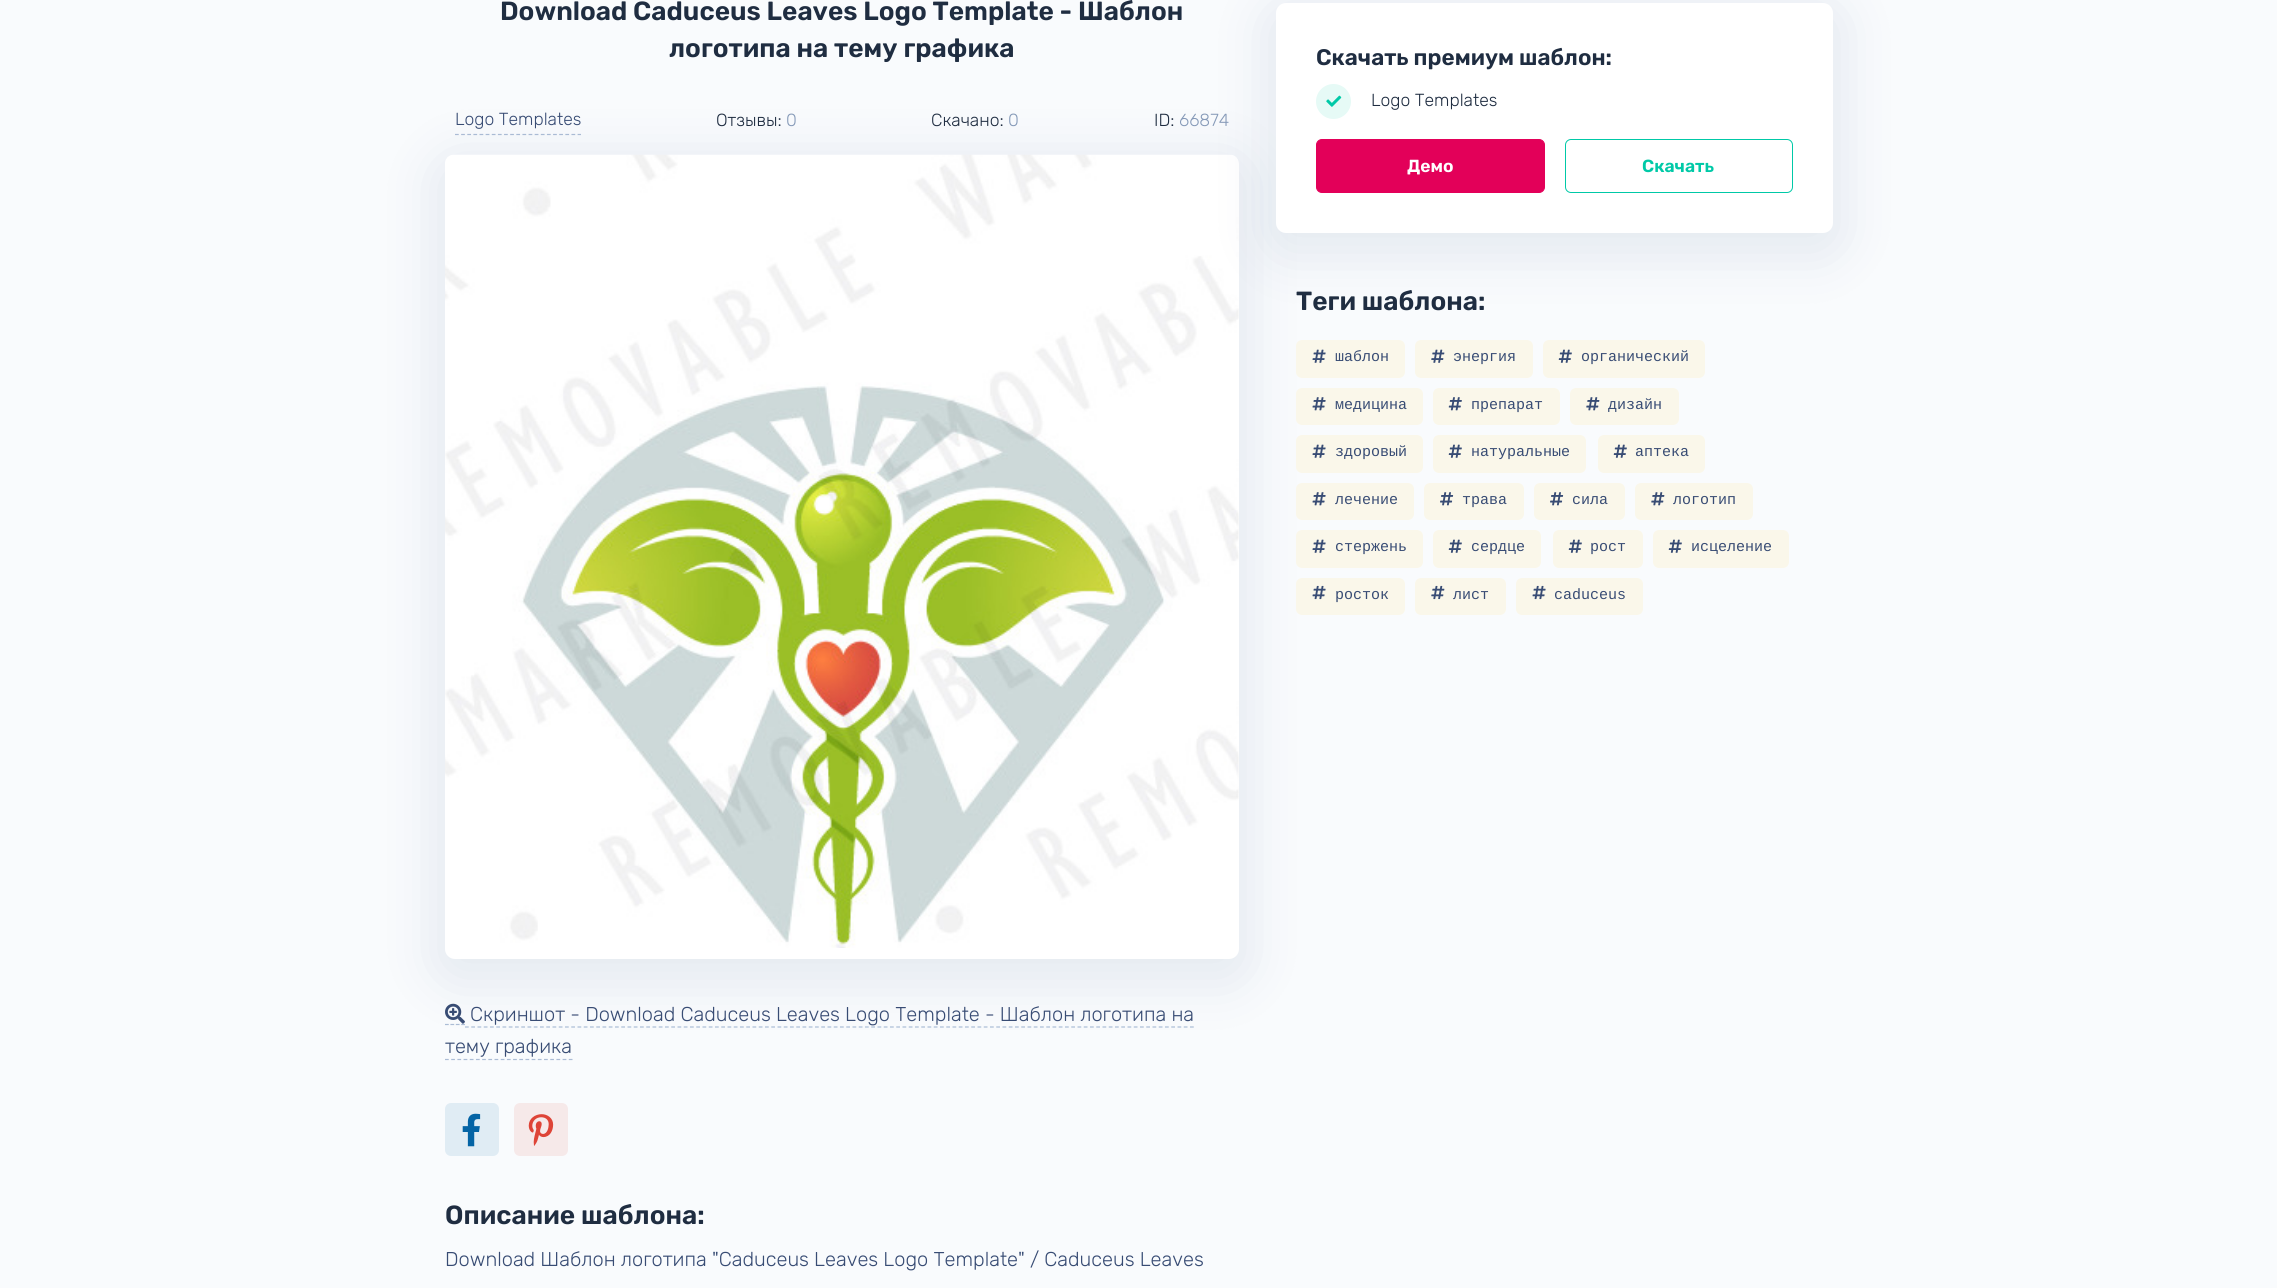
#include <cairo.h>
#include <math.h>
#include <stddef.h>


static void ink(cairo_t *ctx, unsigned color) {
    cairo_set_source_rgb(ctx, (color >> 16) / 255.0, (color >> 8 & 255) / 255.0, (color & 255) / 255.0);
}

static void round_path(cairo_t *ctx, double x, double y, double w, double h, double r) {
    cairo_new_sub_path(ctx);
    cairo_arc(ctx, x + w - r, y + h - r, r, 0, M_PI / 2);
    cairo_arc(ctx, x + r, y + h - r, r, M_PI / 2, M_PI);
    cairo_arc(ctx, x + r, y + r, r, M_PI, 1.5 * M_PI);
    cairo_arc(ctx, x + w - r, y + r, r, 1.5 * M_PI, 2 * M_PI);
    cairo_close_path(ctx);
}

static void blur_box(cairo_t *ctx, double x, double y, double w, double h, double r, double blur, double alpha) {
    cairo_push_group_with_content(ctx, CAIRO_CONTENT_ALPHA);
    cairo_set_operator(ctx, CAIRO_OPERATOR_SOURCE);
    for (int i = 15; i >= -15 && fmin(w, h) + blur * i / 3 > 0; i -= 2) {
        double e = blur * i / 6;
        cairo_set_source_rgba(ctx, 0, 0, 0, alpha * erfc((i - 1) / 8.5) / 2);
        round_path(ctx, x - e, y - e, w + 2 * e, h + 2 * e, fmax(0, fmin(r + e + blur * .6, fmin(w, h) / 2 + e)));
        cairo_fill(ctx);
    }
    cairo_pattern_t *soft = cairo_pop_group(ctx);
    cairo_mask(ctx, soft);
    cairo_pattern_destroy(soft);
}

static void paste(cairo_t *ctx, const char *path, double x, double y, double w, double h) {
    cairo_surface_t *image = cairo_image_surface_create_from_png(path);
    cairo_save(ctx);
    cairo_set_source_surface(ctx, image, x, y);
    cairo_rectangle(ctx, x, y, w, h);
    cairo_fill(ctx);
    cairo_restore(ctx);
    cairo_surface_destroy(image);
}

int main(void) {
    cairo_surface_t *surface = cairo_image_surface_create(CAIRO_FORMAT_RGB24, 2277, 1288);
    cairo_t *ctx = cairo_create(surface);
    cairo_font_options_t *options = cairo_font_options_create();
    cairo_font_options_set_hint_metrics(options, CAIRO_HINT_METRICS_OFF);
    cairo_font_options_set_hint_style(options, CAIRO_HINT_STYLE_NONE);
    cairo_set_font_options(ctx, options);
    cairo_set_miter_limit(ctx, 4);
    ink(ctx, 0xF9FBFD);
    cairo_paint(ctx);
    cairo_select_font_face(ctx, "Rubik SemiBold", CAIRO_FONT_SLANT_NORMAL, CAIRO_FONT_WEIGHT_NORMAL);
    cairo_set_font_size(ctx, 26.25);
    ink(ctx, 0x1F2D41);
    cairo_move_to(ctx, 500, 20);
    cairo_show_text(ctx, "Download Caduceus Leaves Logo Template - Шаблон");
    cairo_move_to(ctx, 669, 57);
    cairo_show_text(ctx, "логотипа на тему графика");
    cairo_new_path(ctx);
    cairo_move_to(ctx, 455, 134.5);
    cairo_line_to(ctx, 581, 134.5);
    ink(ctx, 0xABBCD5);
    cairo_set_line_width(ctx, 1.2);
    cairo_set_dash(ctx, (double[]){3.75, 2.38}, 2, 0);
    cairo_stroke(ctx);
    ink(ctx, 0x869AB8);
    blur_box(ctx, 433, 155, 818, 829, 23, 25, 0.18);
    ink(ctx, 0xFFFFFF);
    round_path(ctx, 445, 155, 794, 804, 10);
    cairo_fill(ctx);
    paste(ctx, "media/1.png", 445, 154, 794, 794);
    cairo_select_font_face(ctx, "Rubik Light", CAIRO_FONT_SLANT_NORMAL, CAIRO_FONT_WEIGHT_NORMAL);
    cairo_set_font_size(ctx, 17.5);
    ink(ctx, 0x384C74);
    cairo_move_to(ctx, 455, 125);
    cairo_show_text(ctx, "Logo Templates");
    ink(ctx, 0x1F2D41);
    cairo_move_to(ctx, 716, 126);
    cairo_show_text(ctx, "Отзывы:");
    ink(ctx, 0x869AB8);
    cairo_move_to(ctx, 786, 126);
    cairo_show_text(ctx, "0");
    ink(ctx, 0x1F2D41);
    cairo_move_to(ctx, 931, 126);
    cairo_show_text(ctx, "Скачано:");
    ink(ctx, 0x869AB8);
    cairo_move_to(ctx, 1008, 126);
    cairo_show_text(ctx, "0");
    ink(ctx, 0x1F2D41);
    cairo_move_to(ctx, 1154, 126);
    cairo_show_text(ctx, "ID:");
    ink(ctx, 0x869AB8);
    cairo_move_to(ctx, 1179, 126);
    cairo_show_text(ctx, "66874");
    cairo_new_path(ctx);
    cairo_move_to(ctx, 445, 1024.5);
    cairo_line_to(ctx, 465, 1024.5);
    ink(ctx, 0xABBCD5);
    cairo_set_dash(ctx, (double[]){3.75, 1.66}, 2, 0);
    cairo_stroke(ctx);
    cairo_new_path(ctx);
    cairo_move_to(ctx, 465, 1027);
    cairo_line_to(ctx, 1194, 1027);
    cairo_set_dash(ctx, (double[]){3.75, 2.5}, 2, 0);
    cairo_stroke(ctx);
    cairo_new_path(ctx);
    cairo_move_to(ctx, 445, 1059.5);
    cairo_line_to(ctx, 572.5, 1059.5);
    cairo_set_dash(ctx, (double[]){3.75, 2.44}, 2, 0);
    cairo_stroke(ctx);
    paste(ctx, "media/2.png", 445, 1003, 20, 21);
    cairo_set_font_size(ctx, 20);
    ink(ctx, 0x384C74);
    cairo_move_to(ctx, 470, 1021);
    cairo_show_text(ctx, "Скриншот - Download Caduceus Leaves Logo Template - Шаблон логотипа на");
    cairo_move_to(ctx, 445, 1053);
    cairo_show_text(ctx, "тему графика");
    ink(ctx, 0xE0ECF4);
    round_path(ctx, 445, 1103, 54, 53, 6);
    cairo_fill(ctx);
    paste(ctx, "media/3.png", 462, 1113, 19, 34);
    ink(ctx, 0xF6E9E9);
    round_path(ctx, 514, 1103, 54, 53, 6);
    cairo_fill(ctx);
    paste(ctx, "media/4.png", 528, 1114, 26, 32);
    cairo_select_font_face(ctx, "Rubik SemiBold", CAIRO_FONT_SLANT_NORMAL, CAIRO_FONT_WEIGHT_NORMAL);
    cairo_set_font_size(ctx, 26.25);
    ink(ctx, 0x1F2D41);
    cairo_move_to(ctx, 445, 1224);
    cairo_show_text(ctx, "Описание шаблона:");
    cairo_select_font_face(ctx, "Rubik Light", CAIRO_FONT_SLANT_NORMAL, CAIRO_FONT_WEIGHT_NORMAL);
    cairo_set_font_size(ctx, 20);
    ink(ctx, 0x384C74);
    cairo_move_to(ctx, 445, 1266);
    cairo_show_text(ctx, "Download Шаблон логотипа \"Caduceus Leaves Logo Template\" / Caduceus Leaves");
    ink(ctx, 0x869AB8);
    blur_box(ctx, 1264, 3, 581, 255, 23, 25, 0.18);
    ink(ctx, 0xFFFFFF);
    round_path(ctx, 1276, 3, 557, 230, 10);
    cairo_fill(ctx);
    cairo_select_font_face(ctx, "Rubik SemiBold", CAIRO_FONT_SLANT_NORMAL, CAIRO_FONT_WEIGHT_NORMAL);
    cairo_set_font_size(ctx, 22.5);
    ink(ctx, 0x1F2D41);
    cairo_move_to(ctx, 1316, 65);
    cairo_show_text(ctx, "Скачать премиум шаблон:");
    ink(ctx, 0xE6FAF6);
    cairo_new_path(ctx);
    cairo_arc(ctx, 1333.5, 101.5, 17.5, 0, 2 * M_PI);
    cairo_fill(ctx);
    paste(ctx, "media/5.png", 1326, 95, 16, 12);
    cairo_select_font_face(ctx, "Rubik Light", CAIRO_FONT_SLANT_NORMAL, CAIRO_FONT_WEIGHT_NORMAL);
    cairo_set_font_size(ctx, 17.5);
    ink(ctx, 0x1F2D41);
    cairo_move_to(ctx, 1371, 106);
    cairo_show_text(ctx, "Logo Templates");
    ink(ctx, 0xE30059);
    round_path(ctx, 1316.5, 139.5, 228, 53, 5.5);
    cairo_fill_preserve(ctx);
    cairo_set_line_width(ctx, 1);
    cairo_set_dash(ctx, NULL, 0, 0);
    cairo_stroke(ctx);
    cairo_select_font_face(ctx, "Rubik SemiBold", CAIRO_FONT_SLANT_NORMAL, CAIRO_FONT_WEIGHT_NORMAL);
    ink(ctx, 0xFFFFFF);
    cairo_move_to(ctx, 1407, 172);
    cairo_show_text(ctx, "Демо");
    round_path(ctx, 1565.5, 139.5, 227, 53, 5.5);
    ink(ctx, 0x00C9A7);
    cairo_stroke(ctx);
    cairo_move_to(ctx, 1642, 172);
    cairo_show_text(ctx, "Скачать");
    cairo_set_font_size(ctx, 26.25);
    ink(ctx, 0x1F2D41);
    cairo_move_to(ctx, 1296, 310);
    cairo_show_text(ctx, "Теги шаблона:");
    ink(ctx, 0xFAF7EA);
    round_path(ctx, 1296, 340, 109, 38, 6);
    cairo_fill(ctx);
    paste(ctx, "media/6.png", 1312, 349, 14, 14);
    cairo_select_font_face(ctx, "Liberation Mono", CAIRO_FONT_SLANT_NORMAL, CAIRO_FONT_WEIGHT_NORMAL);
    cairo_set_font_size(ctx, 15);
    ink(ctx, 0x384C74);
    cairo_move_to(ctx, 1335, 361);
    cairo_show_text(ctx, "шаблон");
    ink(ctx, 0xFAF7EA);
    round_path(ctx, 1415, 340, 118, 38, 6);
    cairo_fill(ctx);
    paste(ctx, "media/7.png", 1431, 349, 14, 14);
    ink(ctx, 0x384C74);
    cairo_move_to(ctx, 1453, 361);
    cairo_show_text(ctx, "энергия");
    ink(ctx, 0xFAF7EA);
    round_path(ctx, 1543, 340, 162, 38, 6);
    cairo_fill(ctx);
    paste(ctx, "media/8.png", 1558, 349, 14, 14);
    ink(ctx, 0x384C74);
    cairo_move_to(ctx, 1581, 361);
    cairo_show_text(ctx, "органический");
    ink(ctx, 0xFAF7EA);
    round_path(ctx, 1296, 388, 127, 37, 6);
    cairo_fill(ctx);
    paste(ctx, "media/9.png", 1312, 397, 14, 14);
    ink(ctx, 0x384C74);
    cairo_move_to(ctx, 1335, 409);
    cairo_show_text(ctx, "медицина");
    ink(ctx, 0xFAF7EA);
    round_path(ctx, 1433, 388, 127, 37, 6);
    cairo_fill(ctx);
    paste(ctx, "media/10.png", 1448, 397, 14, 14);
    ink(ctx, 0x384C74);
    cairo_move_to(ctx, 1471, 409);
    cairo_show_text(ctx, "препарат");
    ink(ctx, 0xFAF7EA);
    round_path(ctx, 1570, 388, 109, 37, 6);
    cairo_fill(ctx);
    paste(ctx, "media/11.png", 1586, 397, 14, 14);
    ink(ctx, 0x384C74);
    cairo_move_to(ctx, 1608, 409);
    cairo_show_text(ctx, "дизайн");
    ink(ctx, 0xFAF7EA);
    round_path(ctx, 1296, 435, 127, 38, 6);
    cairo_fill(ctx);
    paste(ctx, "media/6.png", 1312, 444, 14, 14);
    ink(ctx, 0x384C74);
    cairo_move_to(ctx, 1335, 456);
    cairo_show_text(ctx, "здоровый");
    ink(ctx, 0xFAF7EA);
    round_path(ctx, 1433, 435, 153, 38, 6);
    cairo_fill(ctx);
    paste(ctx, "media/8.png", 1448, 444, 14, 14);
    ink(ctx, 0x384C74);
    cairo_move_to(ctx, 1471, 456);
    cairo_show_text(ctx, "натуральные");
    ink(ctx, 0xFAF7EA);
    round_path(ctx, 1598, 435, 107, 38, 6);
    cairo_fill(ctx);
    paste(ctx, "media/8.png", 1613, 444, 14, 14);
    ink(ctx, 0x384C74);
    cairo_move_to(ctx, 1635, 456);
    cairo_show_text(ctx, "аптека");
    ink(ctx, 0xFAF7EA);
    round_path(ctx, 1296, 483, 118, 37, 6);
    cairo_fill(ctx);
    paste(ctx, "media/9.png", 1312, 492, 14, 14);
    ink(ctx, 0x384C74);
    cairo_move_to(ctx, 1335, 504);
    cairo_show_text(ctx, "лечение");
    ink(ctx, 0xFAF7EA);
    round_path(ctx, 1424, 483, 100, 37, 6);
    cairo_fill(ctx);
    paste(ctx, "media/12.png", 1440, 492, 14, 14);
    ink(ctx, 0x384C74);
    cairo_move_to(ctx, 1462, 504);
    cairo_show_text(ctx, "трава");
    ink(ctx, 0xFAF7EA);
    round_path(ctx, 1534, 483, 91, 37, 6);
    cairo_fill(ctx);
    paste(ctx, "media/12.png", 1550, 492, 14, 14);
    ink(ctx, 0x384C74);
    cairo_move_to(ctx, 1572, 504);
    cairo_show_text(ctx, "сила");
    ink(ctx, 0xFAF7EA);
    round_path(ctx, 1635, 483, 118, 37, 6);
    cairo_fill(ctx);
    paste(ctx, "media/11.png", 1651, 492, 14, 14);
    ink(ctx, 0x384C74);
    cairo_move_to(ctx, 1673, 504);
    cairo_show_text(ctx, "логотип");
    ink(ctx, 0xFAF7EA);
    round_path(ctx, 1296, 530, 127, 38, 6);
    cairo_fill(ctx);
    paste(ctx, "media/6.png", 1312, 539, 14, 14);
    ink(ctx, 0x384C74);
    cairo_move_to(ctx, 1335, 551);
    cairo_show_text(ctx, "стержень");
    ink(ctx, 0xFAF7EA);
    round_path(ctx, 1433, 530, 108, 38, 6);
    cairo_fill(ctx);
    paste(ctx, "media/8.png", 1448, 539, 14, 14);
    ink(ctx, 0x384C74);
    cairo_move_to(ctx, 1471, 551);
    cairo_show_text(ctx, "сердце");
    ink(ctx, 0xFAF7EA);
    round_path(ctx, 1553, 530, 90, 38, 6);
    cairo_fill(ctx);
    paste(ctx, "media/8.png", 1568, 539, 14, 14);
    ink(ctx, 0x384C74);
    cairo_move_to(ctx, 1590, 551);
    cairo_show_text(ctx, "рост");
    ink(ctx, 0xFAF7EA);
    round_path(ctx, 1653, 530, 136, 38, 6);
    cairo_fill(ctx);
    paste(ctx, "media/8.png", 1668, 539, 14, 14);
    ink(ctx, 0x384C74);
    cairo_move_to(ctx, 1691, 551);
    cairo_show_text(ctx, "исцеление");
    ink(ctx, 0xFAF7EA);
    round_path(ctx, 1296, 578, 109, 37, 6);
    cairo_fill(ctx);
    paste(ctx, "media/13.png", 1312, 585, 14, 15);
    ink(ctx, 0x384C74);
    cairo_move_to(ctx, 1335, 599);
    cairo_show_text(ctx, "росток");
    ink(ctx, 0xFAF7EA);
    round_path(ctx, 1415, 578, 91, 37, 6);
    cairo_fill(ctx);
    paste(ctx, "media/14.png", 1431, 585, 14, 15);
    ink(ctx, 0x384C74);
    cairo_move_to(ctx, 1453, 599);
    cairo_show_text(ctx, "лист");
    ink(ctx, 0xFAF7EA);
    round_path(ctx, 1516, 578, 127, 37, 6);
    cairo_fill(ctx);
    paste(ctx, "media/13.png", 1532, 585, 14, 15);
    ink(ctx, 0x384C74);
    cairo_move_to(ctx, 1554, 599);
    cairo_show_text(ctx, "caduceus");
    cairo_surface_write_to_png(surface, "image.png");
    cairo_font_options_destroy(options);
    cairo_destroy(ctx);
    cairo_surface_destroy(surface);
    return 0;
}
